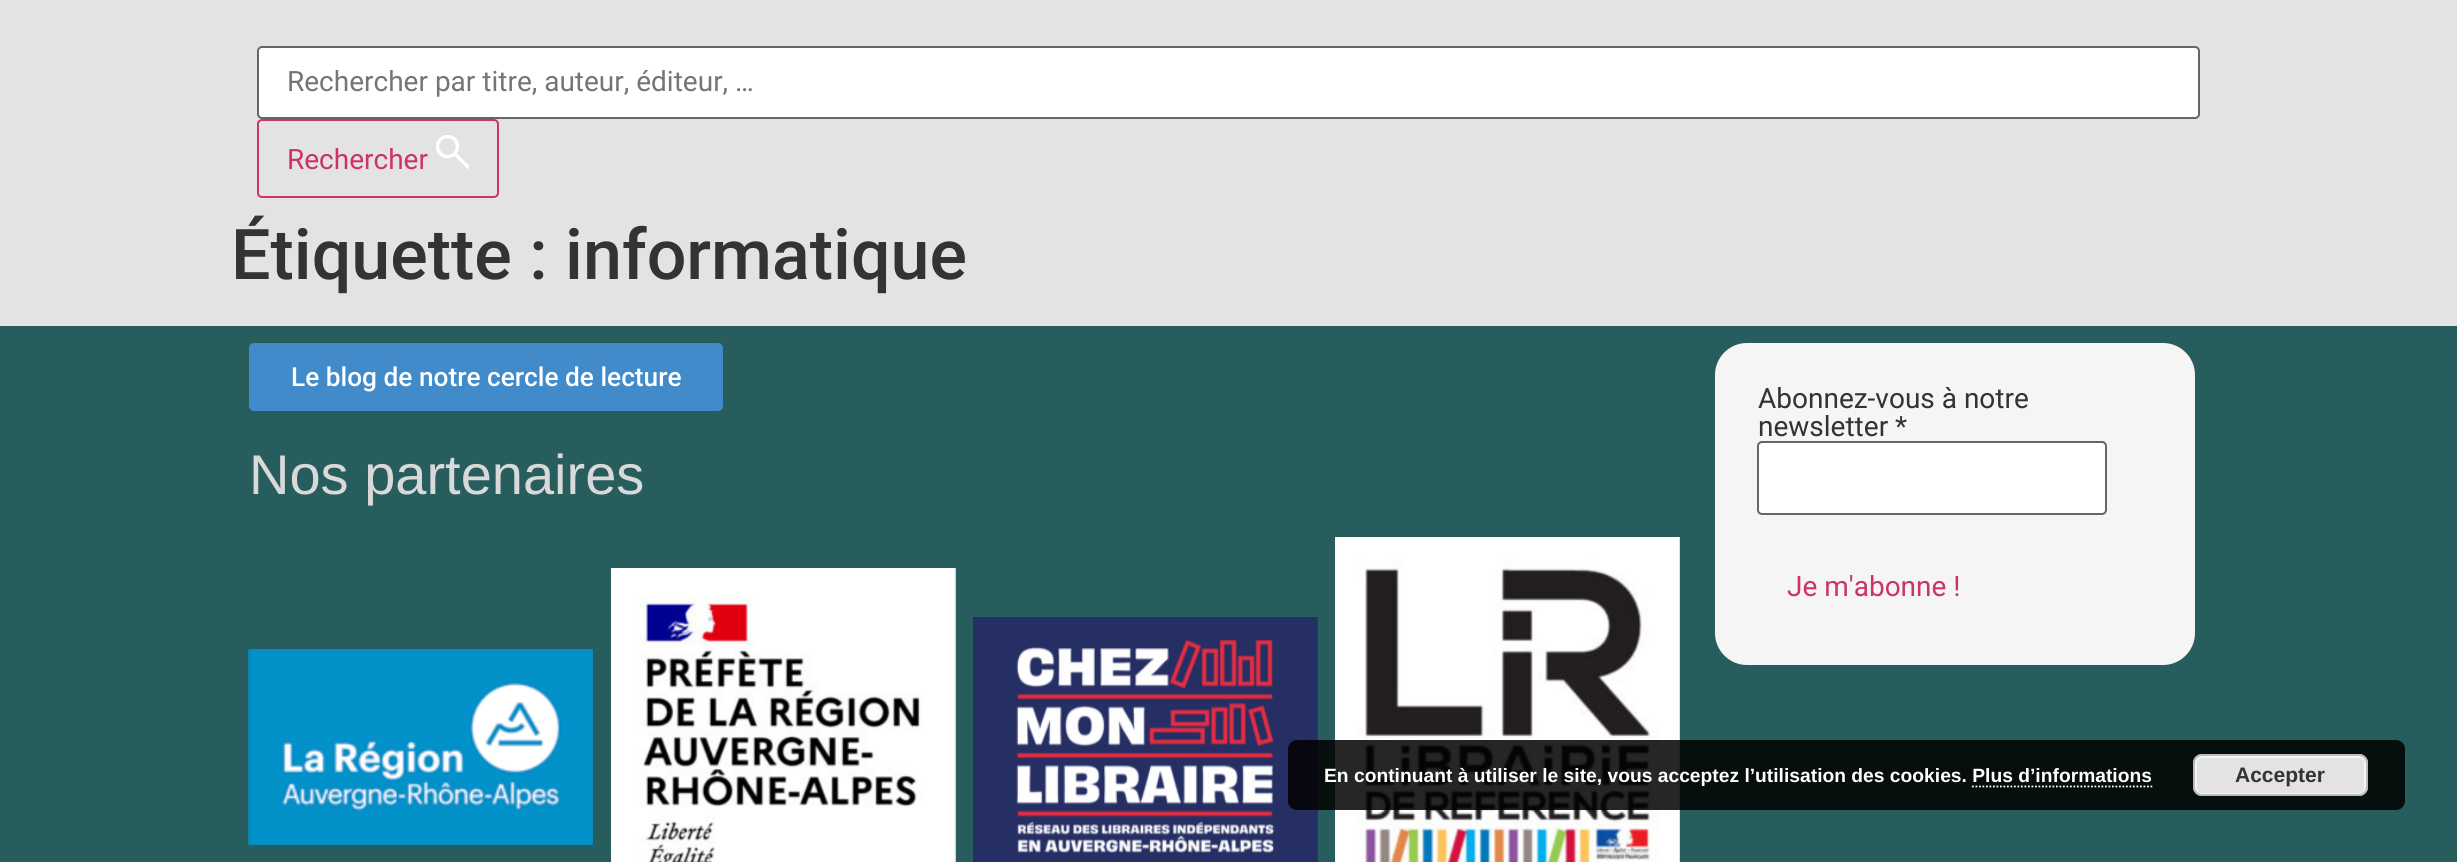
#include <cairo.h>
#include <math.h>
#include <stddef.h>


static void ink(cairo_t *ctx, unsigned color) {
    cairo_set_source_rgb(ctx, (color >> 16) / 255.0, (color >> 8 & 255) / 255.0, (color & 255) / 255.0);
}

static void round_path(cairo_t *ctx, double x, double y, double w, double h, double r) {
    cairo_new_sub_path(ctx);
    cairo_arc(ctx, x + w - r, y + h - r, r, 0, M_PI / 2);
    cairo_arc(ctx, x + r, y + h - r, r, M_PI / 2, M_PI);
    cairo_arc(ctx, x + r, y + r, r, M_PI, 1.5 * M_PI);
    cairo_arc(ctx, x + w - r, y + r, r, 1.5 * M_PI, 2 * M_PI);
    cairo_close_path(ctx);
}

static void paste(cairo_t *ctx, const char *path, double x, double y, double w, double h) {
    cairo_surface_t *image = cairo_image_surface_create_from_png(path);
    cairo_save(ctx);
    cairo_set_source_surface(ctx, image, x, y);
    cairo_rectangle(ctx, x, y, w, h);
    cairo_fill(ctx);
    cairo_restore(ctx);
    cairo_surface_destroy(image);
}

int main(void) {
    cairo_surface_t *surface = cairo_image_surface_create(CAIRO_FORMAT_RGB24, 2457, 862);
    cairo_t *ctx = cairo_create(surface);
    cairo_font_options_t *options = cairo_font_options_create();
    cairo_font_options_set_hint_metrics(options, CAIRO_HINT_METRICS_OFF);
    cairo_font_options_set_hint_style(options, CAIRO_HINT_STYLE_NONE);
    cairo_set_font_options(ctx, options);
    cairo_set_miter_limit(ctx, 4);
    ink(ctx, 0xE3E3E3);
    cairo_paint(ctx);
    ink(ctx, 0xFFFFFF);
    round_path(ctx, 258, 47, 1941, 71, 4);
    cairo_fill_preserve(ctx);
    ink(ctx, 0x666666);
    cairo_stroke(ctx);
    cairo_select_font_face(ctx, "Roboto", CAIRO_FONT_SLANT_NORMAL, CAIRO_FONT_WEIGHT_NORMAL);
    cairo_set_font_size(ctx, 28);
    ink(ctx, 0x757575);
    cairo_move_to(ctx, 287, 91);
    cairo_show_text(ctx, "Rechercher par titre, auteur, éditeur, …");
    round_path(ctx, 258, 120, 240, 77, 4);
    ink(ctx, 0xCC3366);
    cairo_stroke(ctx);
    cairo_move_to(ctx, 287, 169);
    cairo_show_text(ctx, "Rechercher");
    cairo_save(ctx);
    cairo_rectangle(ctx, 436, 135, 33, 35);
    cairo_clip(ctx);
    cairo_arc(ctx, 447.5, 146.5, 10, 0, 2 * M_PI);
    ink(ctx, 0xFFFFFF);
    cairo_set_line_width(ctx, 3.5);
    cairo_stroke(ctx);
    cairo_new_path(ctx);
    cairo_move_to(ctx, 455.5, 154.5);
    cairo_line_to(ctx, 469, 168);
    cairo_stroke(ctx);
    cairo_restore(ctx);
    cairo_select_font_face(ctx, "Roboto Medium", CAIRO_FONT_SLANT_NORMAL, CAIRO_FONT_WEIGHT_NORMAL);
    cairo_set_font_size(ctx, 70);
    ink(ctx, 0x333333);
    cairo_move_to(ctx, 231, 279);
    cairo_show_text(ctx, "Étiquette : informatique");
    ink(ctx, 0x285D5E);
    cairo_rectangle(ctx, 0, 326, 2457, 536);
    cairo_fill(ctx);
    ink(ctx, 0x428BCA);
    round_path(ctx, 249, 343, 474, 68, 5);
    cairo_fill(ctx);
    cairo_set_font_size(ctx, 26.25);
    ink(ctx, 0xFFFFFF);
    cairo_move_to(ctx, 291, 386);
    cairo_show_text(ctx, "Le blog de notre cercle de lecture");
    cairo_select_font_face(ctx, "Liberation Sans", CAIRO_FONT_SLANT_NORMAL, CAIRO_FONT_WEIGHT_NORMAL);
    cairo_set_font_size(ctx, 56);
    ink(ctx, 0xD9D9D9);
    cairo_move_to(ctx, 249, 494);
    cairo_show_text(ctx, "Nos partenaires");
    paste(ctx, "media/1.png", 248, 649, 345, 196);
    paste(ctx, "media/2.png", 611, 568, 345, 294);
    paste(ctx, "media/3.png", 973, 617, 345, 245);
    paste(ctx, "media/4.png", 1335, 537, 345, 325);
    ink(ctx, 0xF5F5F5);
    round_path(ctx, 1715, 343, 480, 322, 32);
    cairo_fill(ctx);
    cairo_select_font_face(ctx, "Roboto", CAIRO_FONT_SLANT_NORMAL, CAIRO_FONT_WEIGHT_NORMAL);
    cairo_set_font_size(ctx, 28);
    ink(ctx, 0x333333);
    cairo_move_to(ctx, 1758, 408);
    cairo_show_text(ctx, "Abonnez-vous à notre");
    cairo_move_to(ctx, 1758, 436);
    cairo_show_text(ctx, "newsletter *");
    ink(ctx, 0xFFFFFF);
    round_path(ctx, 1758, 442, 348, 72, 4);
    cairo_fill_preserve(ctx);
    ink(ctx, 0x666666);
    cairo_stroke(ctx);
    ink(ctx, 0xCC3366);
    cairo_move_to(ctx, 1787, 596);
    cairo_show_text(ctx, "Je m'abonne !");
    cairo_set_source_rgba(ctx, 0, 0, 0, 0.85);
    round_path(ctx, 1288, 740, 1117, 70, 9);
    cairo_fill(ctx);
    cairo_select_font_face(ctx, "Liberation Sans", CAIRO_FONT_SLANT_NORMAL, CAIRO_FONT_WEIGHT_BOLD);
    cairo_set_font_size(ctx, 19.25);
    ink(ctx, 0xFFFFFF);
    cairo_move_to(ctx, 1324, 782);
    cairo_show_text(ctx, "En continuant à utiliser le site, vous acceptez l’utilisation des cookies. Plus d’informations");
    ink(ctx, 0xE3E3E3);
    round_path(ctx, 2193, 754, 175, 42, 9);
    cairo_fill(ctx);
    round_path(ctx, 2196, 757, 169, 37, 6);
    ink(ctx, 0xF6F6F6);
    cairo_stroke(ctx);
    round_path(ctx, 2194, 755, 173, 40, 8);
    ink(ctx, 0xBBBBBB);
    cairo_stroke(ctx);
    cairo_set_font_size(ctx, 21);
    ink(ctx, 0x333333);
    cairo_move_to(ctx, 2235, 782);
    cairo_show_text(ctx, "Accepter");
    cairo_new_path(ctx);
    cairo_move_to(ctx, 1972, 786.5);
    cairo_line_to(ctx, 2152.5, 786.5);
    ink(ctx, 0xFFFFFF);
    cairo_set_line_width(ctx, 1.8);
    cairo_set_dash(ctx, (double[]){1.75, 1.75}, 2, 0);
    cairo_stroke(ctx);
    cairo_surface_write_to_png(surface, "image.png");
    cairo_font_options_destroy(options);
    cairo_destroy(ctx);
    cairo_surface_destroy(surface);
    return 0;
}
